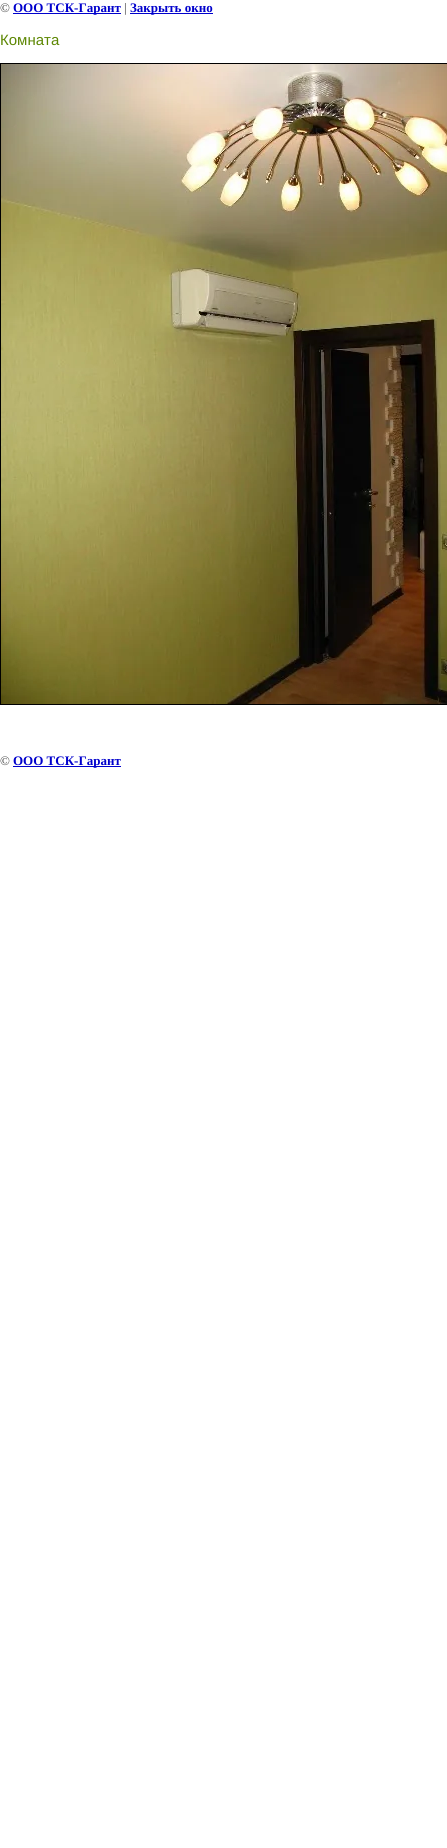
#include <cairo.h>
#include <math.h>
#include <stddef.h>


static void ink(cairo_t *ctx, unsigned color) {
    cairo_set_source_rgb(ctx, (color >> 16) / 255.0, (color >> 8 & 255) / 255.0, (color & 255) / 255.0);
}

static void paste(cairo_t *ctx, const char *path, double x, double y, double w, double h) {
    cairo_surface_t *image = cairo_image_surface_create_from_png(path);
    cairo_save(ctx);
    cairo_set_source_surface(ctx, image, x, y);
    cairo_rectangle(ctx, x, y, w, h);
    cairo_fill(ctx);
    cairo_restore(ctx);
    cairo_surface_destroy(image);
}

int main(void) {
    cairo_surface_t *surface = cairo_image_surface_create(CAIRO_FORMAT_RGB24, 447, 1848);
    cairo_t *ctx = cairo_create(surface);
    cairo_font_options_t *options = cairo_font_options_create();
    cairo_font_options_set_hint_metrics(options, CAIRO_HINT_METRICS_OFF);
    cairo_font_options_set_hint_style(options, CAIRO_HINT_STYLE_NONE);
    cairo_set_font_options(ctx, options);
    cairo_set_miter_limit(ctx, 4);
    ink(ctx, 0xFFFFFF);
    cairo_paint(ctx);
    cairo_select_font_face(ctx, "Liberation Serif", CAIRO_FONT_SLANT_NORMAL, CAIRO_FONT_WEIGHT_NORMAL);
    cairo_set_font_size(ctx, 13);
    ink(ctx, 0x404040);
    cairo_move_to(ctx, 0, 12);
    cairo_show_text(ctx, "©");
    ink(ctx, 0x0000CC);
    cairo_rectangle(ctx, 13, 13, 108, 1);
    cairo_fill(ctx);
    cairo_select_font_face(ctx, "Liberation Serif", CAIRO_FONT_SLANT_NORMAL, CAIRO_FONT_WEIGHT_BOLD);
    cairo_move_to(ctx, 13, 12);
    cairo_show_text(ctx, "ООО ТСК-Гарант");
    cairo_select_font_face(ctx, "Liberation Serif", CAIRO_FONT_SLANT_NORMAL, CAIRO_FONT_WEIGHT_NORMAL);
    ink(ctx, 0x404040);
    cairo_move_to(ctx, 124, 12);
    cairo_show_text(ctx, "|");
    ink(ctx, 0x0000CC);
    cairo_rectangle(ctx, 130, 13, 83, 1);
    cairo_fill(ctx);
    cairo_select_font_face(ctx, "Liberation Serif", CAIRO_FONT_SLANT_NORMAL, CAIRO_FONT_WEIGHT_BOLD);
    cairo_move_to(ctx, 130, 12);
    cairo_show_text(ctx, "Закрыть окно");
    cairo_select_font_face(ctx, "Liberation Sans", CAIRO_FONT_SLANT_NORMAL, CAIRO_FONT_WEIGHT_NORMAL);
    cairo_set_font_size(ctx, 15);
    ink(ctx, 0x5D8703);
    cairo_move_to(ctx, 0, 45);
    cairo_show_text(ctx, "Комната");
    cairo_rectangle(ctx, 0.5, 63.5, 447, 641);
    ink(ctx, 0x000000);
    cairo_set_line_width(ctx, 1);
    cairo_stroke(ctx);
    paste(ctx, "media/1.png", 1, 64, 446, 640);
    cairo_select_font_face(ctx, "Liberation Serif", CAIRO_FONT_SLANT_NORMAL, CAIRO_FONT_WEIGHT_NORMAL);
    cairo_set_font_size(ctx, 13);
    ink(ctx, 0x404040);
    cairo_move_to(ctx, 0, 765);
    cairo_show_text(ctx, "©");
    ink(ctx, 0x0000CC);
    cairo_rectangle(ctx, 13, 766, 108, 1);
    cairo_fill(ctx);
    cairo_select_font_face(ctx, "Liberation Serif", CAIRO_FONT_SLANT_NORMAL, CAIRO_FONT_WEIGHT_BOLD);
    cairo_move_to(ctx, 13, 765);
    cairo_show_text(ctx, "ООО ТСК-Гарант");
    cairo_surface_write_to_png(surface, "image.png");
    cairo_font_options_destroy(options);
    cairo_destroy(ctx);
    cairo_surface_destroy(surface);
    return 0;
}
